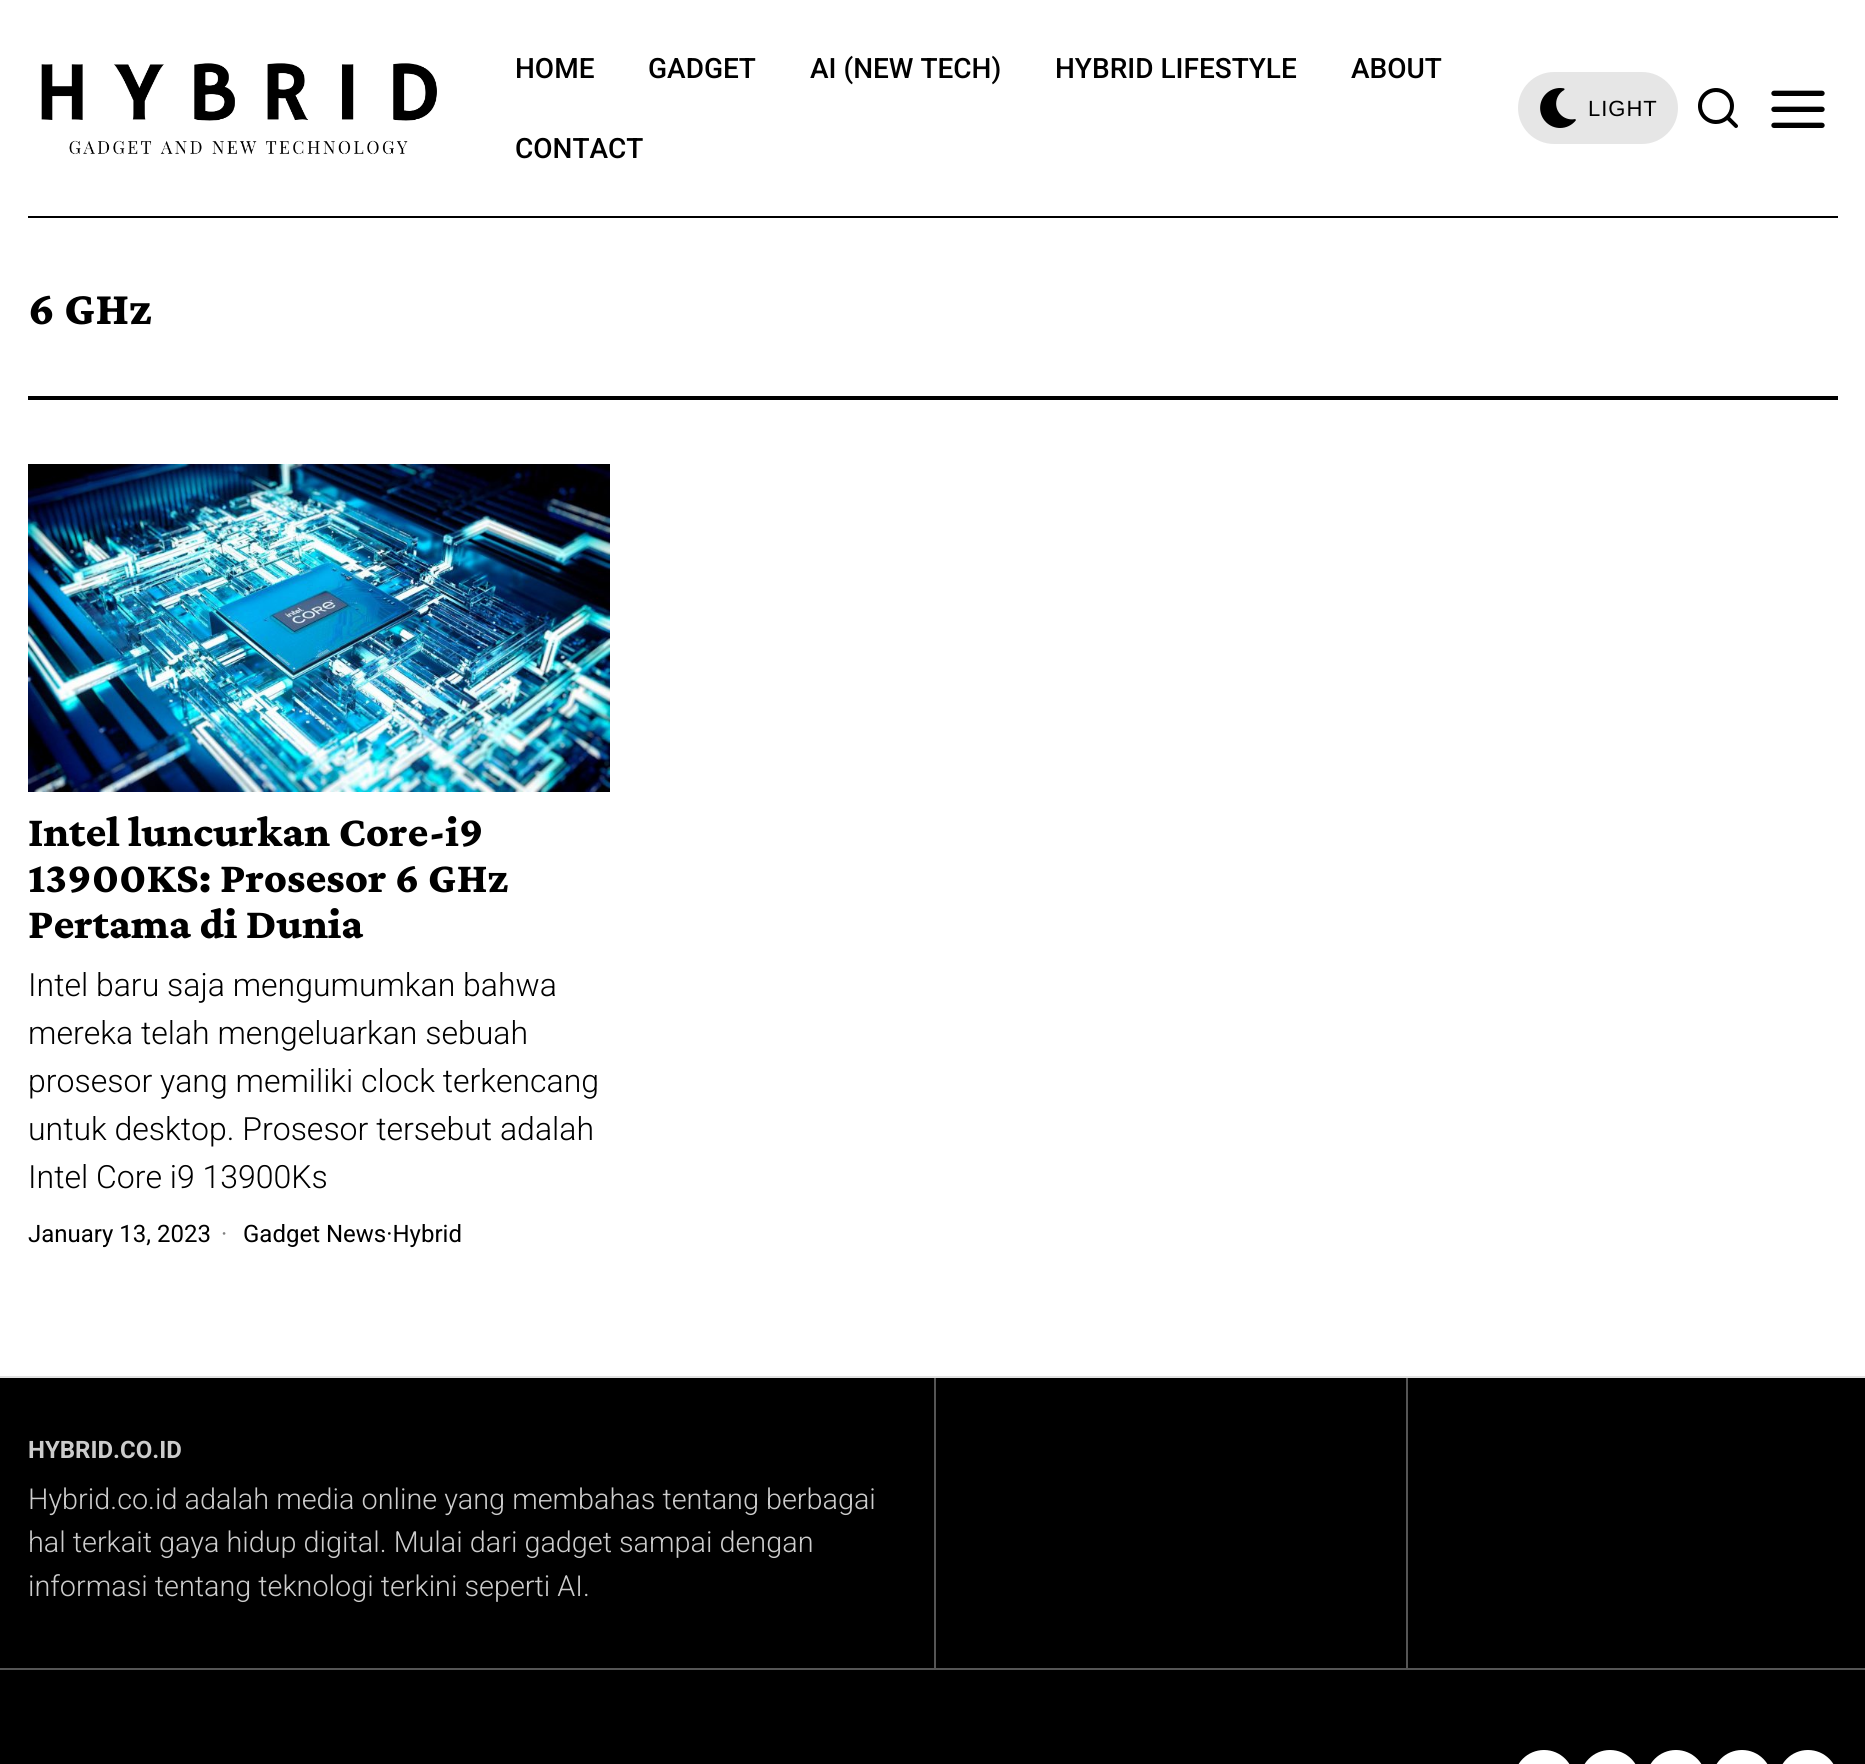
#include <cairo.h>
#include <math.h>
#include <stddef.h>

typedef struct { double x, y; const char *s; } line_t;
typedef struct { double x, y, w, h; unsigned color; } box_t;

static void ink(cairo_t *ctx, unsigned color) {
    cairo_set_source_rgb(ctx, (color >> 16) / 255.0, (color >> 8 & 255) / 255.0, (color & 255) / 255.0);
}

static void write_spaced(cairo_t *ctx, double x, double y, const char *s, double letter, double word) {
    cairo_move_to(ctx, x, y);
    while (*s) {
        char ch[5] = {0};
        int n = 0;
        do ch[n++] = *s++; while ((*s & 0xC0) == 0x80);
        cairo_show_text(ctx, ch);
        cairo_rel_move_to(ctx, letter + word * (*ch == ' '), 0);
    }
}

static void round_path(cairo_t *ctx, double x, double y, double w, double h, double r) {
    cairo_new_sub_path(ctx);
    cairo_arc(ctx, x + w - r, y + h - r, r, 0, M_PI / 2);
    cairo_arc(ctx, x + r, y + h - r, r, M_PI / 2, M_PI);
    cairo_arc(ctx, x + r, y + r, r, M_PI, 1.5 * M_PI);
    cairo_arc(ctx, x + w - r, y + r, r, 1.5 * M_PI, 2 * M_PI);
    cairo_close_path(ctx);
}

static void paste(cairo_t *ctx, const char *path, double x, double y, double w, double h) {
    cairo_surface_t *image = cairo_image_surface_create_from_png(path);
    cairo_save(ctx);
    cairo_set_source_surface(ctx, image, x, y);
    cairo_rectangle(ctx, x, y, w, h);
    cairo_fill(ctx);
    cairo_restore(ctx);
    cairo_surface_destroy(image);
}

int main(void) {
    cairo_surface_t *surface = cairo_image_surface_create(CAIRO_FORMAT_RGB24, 1865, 1764);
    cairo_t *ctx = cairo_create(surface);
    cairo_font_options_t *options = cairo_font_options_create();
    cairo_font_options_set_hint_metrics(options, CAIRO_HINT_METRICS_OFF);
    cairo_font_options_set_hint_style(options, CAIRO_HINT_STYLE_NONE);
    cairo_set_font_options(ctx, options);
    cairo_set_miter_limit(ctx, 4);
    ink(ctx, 0xFFFFFF);
    cairo_paint(ctx);
    ink(ctx, 0x000000);
    cairo_rectangle(ctx, 28, 216, 1810, 2);
    cairo_fill(ctx);
    paste(ctx, "media/1.png", 41, 63, 396, 92);
    cairo_select_font_face(ctx, "Roboto Medium", CAIRO_FONT_SLANT_NORMAL, CAIRO_FONT_WEIGHT_NORMAL);
    cairo_set_font_size(ctx, 28);
    {
        static const line_t items[] = {
            {515, 78, "HOME"},
            {648, 78, "GADGET"},
            {810, 78, "AI (NEW TECH)"},
            {1055, 78, "HYBRID LIFESTYLE"},
            {1351, 78, "ABOUT"},
            {515, 158, "CONTACT"},
        };
        for (size_t i = 0; i < sizeof items / sizeof *items; i++) {
            cairo_move_to(ctx, items[i].x, items[i].y);
            cairo_show_text(ctx, items[i].s);
        }
    }
    ink(ctx, 0xE6E6E6);
    round_path(ctx, 1518, 72, 160, 72, 36);
    cairo_fill(ctx);
    paste(ctx, "media/2.png", 1540, 88, 36, 40);
    cairo_select_font_face(ctx, "Liberation Sans", CAIRO_FONT_SLANT_NORMAL, CAIRO_FONT_WEIGHT_NORMAL);
    cairo_set_font_size(ctx, 22);
    ink(ctx, 0x000000);
    write_spaced(ctx, 1588, 116, "LIGHT", 1, 0);
    paste(ctx, "media/3.png", 1698, 88, 40, 40);
    paste(ctx, "media/4.png", 1771, 90, 54, 38);
    cairo_rectangle(ctx, 28, 396, 1810, 4);
    cairo_fill(ctx);
    cairo_select_font_face(ctx, "Crimson Pro ExtraBold", CAIRO_FONT_SLANT_NORMAL, CAIRO_FONT_WEIGHT_NORMAL);
    cairo_set_font_size(ctx, 48);
    cairo_move_to(ctx, 28, 324);
    cairo_show_text(ctx, "6 GHz");
    paste(ctx, "media/5.png", 28, 464, 582, 328);
    cairo_set_font_size(ctx, 44);
    {
        static const line_t items[] = {
            {28, 846, "Intel luncurkan Core-i9"},
            {28, 892, "13900KS: Prosesor 6 GHz"},
            {28, 938, "Pertama di Dunia"},
        };
        for (size_t i = 0; i < sizeof items / sizeof *items; i++) {
            cairo_move_to(ctx, items[i].x, items[i].y);
            cairo_show_text(ctx, items[i].s);
        }
    }
    cairo_select_font_face(ctx, "Roboto Light", CAIRO_FONT_SLANT_NORMAL, CAIRO_FONT_WEIGHT_NORMAL);
    cairo_set_font_size(ctx, 32);
    {
        static const line_t items[] = {
            {28, 996, "Intel baru saja mengumumkan bahwa"},
            {28, 1044, "mereka telah mengeluarkan sebuah"},
            {28, 1092, "prosesor yang memiliki clock terkencang"},
            {28, 1140, "untuk desktop. Prosesor tersebut adalah"},
            {28, 1188, "Intel Core i9 13900Ks"},
        };
        for (size_t i = 0; i < sizeof items / sizeof *items; i++) {
            cairo_move_to(ctx, items[i].x, items[i].y);
            cairo_show_text(ctx, items[i].s);
        }
    }
    cairo_select_font_face(ctx, "Roboto", CAIRO_FONT_SLANT_NORMAL, CAIRO_FONT_WEIGHT_NORMAL);
    cairo_set_font_size(ctx, 24);
    cairo_move_to(ctx, 28, 1242);
    cairo_show_text(ctx, "January 13, 2023");
    ink(ctx, 0x808080);
    cairo_move_to(ctx, 221, 1242);
    cairo_show_text(ctx, "·");
    ink(ctx, 0x000000);
    cairo_move_to(ctx, 243, 1242);
    cairo_show_text(ctx, "Gadget News·Hybrid");
    cairo_rectangle(ctx, 0, 1378, 1865, 290);
    cairo_fill(ctx);
    ink(ctx, 0xE1E1E1);
    cairo_rectangle(ctx, 0, 1376, 1865, 2);
    cairo_fill(ctx);
    cairo_select_font_face(ctx, "Roboto", CAIRO_FONT_SLANT_NORMAL, CAIRO_FONT_WEIGHT_BOLD);
    ink(ctx, 0xCCCCCC);
    cairo_move_to(ctx, 28, 1458);
    cairo_show_text(ctx, "HYBRID.CO.ID");
    cairo_select_font_face(ctx, "Roboto Light", CAIRO_FONT_SLANT_NORMAL, CAIRO_FONT_WEIGHT_NORMAL);
    cairo_set_font_size(ctx, 28.8);
    {
        static const line_t items[] = {
            {28, 1509, "Hybrid.co.id adalah media online yang membahas tentang berbagai"},
            {28, 1552, "hal terkait gaya hidup digital. Mulai dari gadget sampai dengan"},
            {28, 1596, "informasi tentang teknologi terkini seperti AI."},
        };
        for (size_t i = 0; i < sizeof items / sizeof *items; i++) {
            cairo_move_to(ctx, items[i].x, items[i].y);
            cairo_show_text(ctx, items[i].s);
        }
    }
    {
        static const box_t items[] = {
            {934, 1378, 2, 290, 0x555555},
            {1406, 1378, 2, 290, 0x555555},
            {0, 1670, 1865, 94, 0x000000},
            {0, 1668, 1865, 2, 0x555555},
        };
        for (size_t i = 0; i < sizeof items / sizeof *items; i++) {
            ink(ctx, items[i].color);
            cairo_rectangle(ctx, items[i].x, items[i].y, items[i].w, items[i].h);
            cairo_fill(ctx);
        }
    }
    ink(ctx, 0xFFFFFF);
    round_path(ctx, 1514, 1750, 60, 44, 30);
    cairo_fill(ctx);
    round_path(ctx, 1580, 1750, 60, 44, 30);
    cairo_fill(ctx);
    round_path(ctx, 1646, 1750, 60, 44, 30);
    cairo_fill(ctx);
    round_path(ctx, 1712, 1750, 60, 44, 30);
    cairo_fill(ctx);
    round_path(ctx, 1778, 1750, 60, 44, 30);
    cairo_fill(ctx);
    cairo_surface_write_to_png(surface, "image.png");
    cairo_font_options_destroy(options);
    cairo_destroy(ctx);
    cairo_surface_destroy(surface);
    return 0;
}
